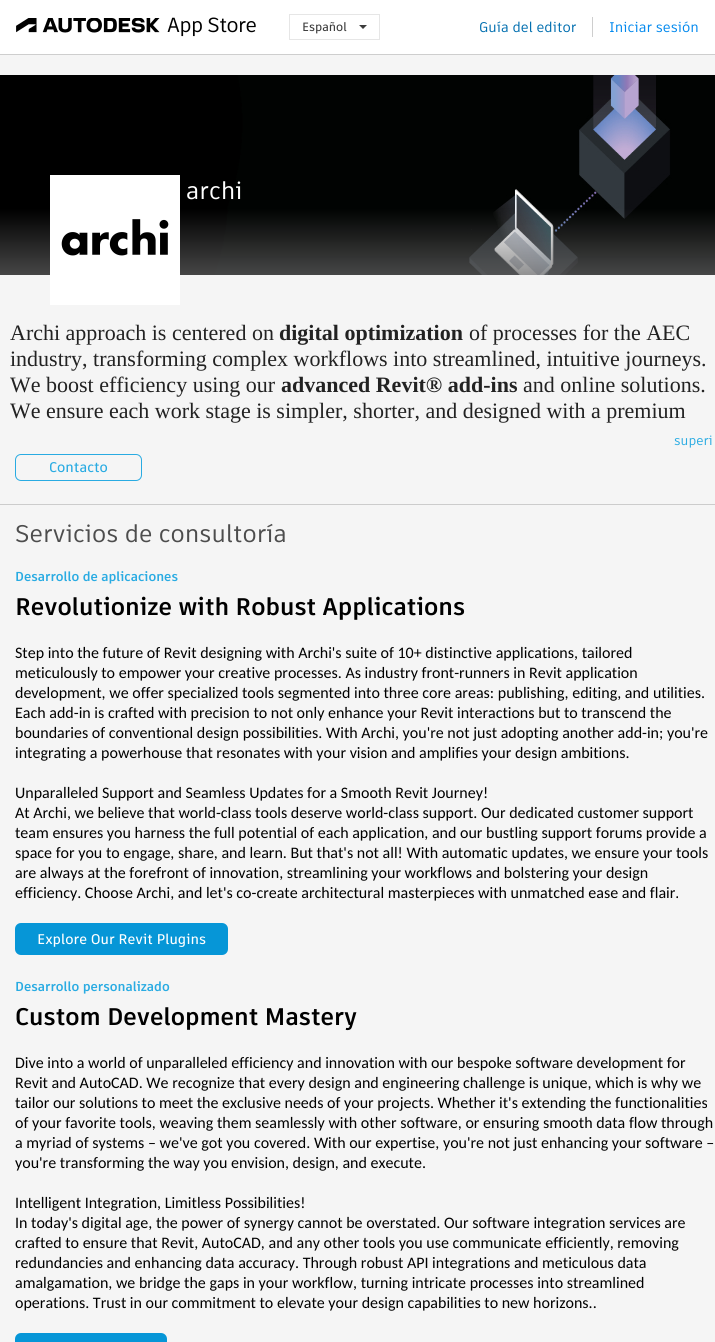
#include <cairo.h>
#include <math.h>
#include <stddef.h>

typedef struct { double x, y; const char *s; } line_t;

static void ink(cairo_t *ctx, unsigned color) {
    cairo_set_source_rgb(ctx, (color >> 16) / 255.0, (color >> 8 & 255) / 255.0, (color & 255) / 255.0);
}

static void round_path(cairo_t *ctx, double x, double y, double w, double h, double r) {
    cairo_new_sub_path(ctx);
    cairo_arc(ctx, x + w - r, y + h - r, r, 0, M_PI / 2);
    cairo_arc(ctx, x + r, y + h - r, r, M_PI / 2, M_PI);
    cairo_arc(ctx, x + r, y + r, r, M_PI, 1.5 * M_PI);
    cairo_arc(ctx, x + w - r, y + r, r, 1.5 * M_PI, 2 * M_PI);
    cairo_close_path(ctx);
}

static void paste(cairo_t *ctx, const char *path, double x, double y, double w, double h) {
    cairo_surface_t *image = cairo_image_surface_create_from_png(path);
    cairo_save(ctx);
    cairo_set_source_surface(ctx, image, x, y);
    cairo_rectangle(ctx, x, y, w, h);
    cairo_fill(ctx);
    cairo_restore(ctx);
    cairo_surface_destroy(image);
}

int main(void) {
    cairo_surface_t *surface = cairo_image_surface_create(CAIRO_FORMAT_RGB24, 715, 1342);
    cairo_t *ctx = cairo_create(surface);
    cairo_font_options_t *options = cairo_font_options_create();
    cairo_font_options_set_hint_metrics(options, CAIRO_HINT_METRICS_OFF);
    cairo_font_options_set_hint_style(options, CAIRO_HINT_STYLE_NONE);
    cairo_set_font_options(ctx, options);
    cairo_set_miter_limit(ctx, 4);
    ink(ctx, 0xF5F5F5);
    cairo_paint(ctx);
    ink(ctx, 0xFFFFFF);
    cairo_rectangle(ctx, 0, 0, 715, 54);
    cairo_fill(ctx);
    ink(ctx, 0xCECECE);
    cairo_rectangle(ctx, 0, 54, 715, 1);
    cairo_fill(ctx);
    paste(ctx, "media/1.png", 16, 17, 240, 20);
    cairo_rectangle(ctx, 289.5, 14.5, 90, 25);
    ink(ctx, 0xE6E6E6);
    cairo_set_line_width(ctx, 1);
    cairo_stroke(ctx);
    cairo_select_font_face(ctx, "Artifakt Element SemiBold", CAIRO_FONT_SLANT_NORMAL, CAIRO_FONT_WEIGHT_NORMAL);
    cairo_set_font_size(ctx, 12);
    ink(ctx, 0x3C3C3C);
    cairo_move_to(ctx, 302, 31);
    cairo_show_text(ctx, "Español");
    cairo_new_path(ctx);
    cairo_move_to(ctx, 359, 25);
    cairo_line_to(ctx, 367, 25);
    cairo_line_to(ctx, 363, 29);
    cairo_close_path(ctx);
    cairo_fill(ctx);
    ink(ctx, 0xCECECE);
    cairo_rectangle(ctx, 592, 17, 1, 20);
    cairo_fill(ctx);
    cairo_select_font_face(ctx, "Artifakt Element Medium", CAIRO_FONT_SLANT_NORMAL, CAIRO_FONT_WEIGHT_NORMAL);
    cairo_set_font_size(ctx, 14);
    ink(ctx, 0x006EAF);
    cairo_move_to(ctx, 479, 32);
    cairo_show_text(ctx, "Guía del editor");
    ink(ctx, 0x0088EE);
    cairo_move_to(ctx, 609, 32);
    cairo_show_text(ctx, "Iniciar sesión");
    paste(ctx, "media/2.png", 0, 75, 715, 200);
    ink(ctx, 0xFFFFFF);
    cairo_rectangle(ctx, 50, 175, 130, 130);
    cairo_fill(ctx);
    paste(ctx, "media/3.png", 61, 219, 108, 37);
    cairo_set_font_size(ctx, 24);
    cairo_move_to(ctx, 186, 199);
    cairo_show_text(ctx, "archi");
    cairo_select_font_face(ctx, "Liberation Serif", CAIRO_FONT_SLANT_NORMAL, CAIRO_FONT_WEIGHT_NORMAL);
    cairo_set_font_size(ctx, 22);
    ink(ctx, 0x222222);
    cairo_move_to(ctx, 10, 340);
    cairo_show_text(ctx, "Archi approach is centered on");
    cairo_select_font_face(ctx, "Liberation Serif", CAIRO_FONT_SLANT_NORMAL, CAIRO_FONT_WEIGHT_BOLD);
    cairo_move_to(ctx, 279, 340);
    cairo_show_text(ctx, "digital optimization");
    cairo_select_font_face(ctx, "Liberation Serif", CAIRO_FONT_SLANT_NORMAL, CAIRO_FONT_WEIGHT_NORMAL);
    {
        static const line_t items[] = {
            {469, 340, "of processes for the AEC"},
            {10, 366, "industry, transforming complex workflows into streamlined, intuitive journeys."},
            {10, 392, "We boost efficiency using our"},
        };
        for (size_t i = 0; i < sizeof items / sizeof *items; i++) {
            cairo_move_to(ctx, items[i].x, items[i].y);
            cairo_show_text(ctx, items[i].s);
        }
    }
    cairo_select_font_face(ctx, "Liberation Serif", CAIRO_FONT_SLANT_NORMAL, CAIRO_FONT_WEIGHT_BOLD);
    cairo_move_to(ctx, 281, 392);
    cairo_show_text(ctx, "advanced Revit® add-ins");
    cairo_select_font_face(ctx, "Liberation Serif", CAIRO_FONT_SLANT_NORMAL, CAIRO_FONT_WEIGHT_NORMAL);
    cairo_move_to(ctx, 523, 392);
    cairo_show_text(ctx, "and online solutions.");
    cairo_move_to(ctx, 10, 418);
    cairo_show_text(ctx, "We ensure each work stage is simpler, shorter, and designed with a premium");
    cairo_select_font_face(ctx, "Artifakt Element Medium", CAIRO_FONT_SLANT_NORMAL, CAIRO_FONT_WEIGHT_NORMAL);
    cairo_set_font_size(ctx, 13);
    ink(ctx, 0x29ABE2);
    cairo_move_to(ctx, 674, 445);
    cairo_show_text(ctx, "superi");
    round_path(ctx, 15.5, 454.5, 126, 26, 5.5);
    cairo_stroke(ctx);
    cairo_select_font_face(ctx, "Artifakt Element SemiBold", CAIRO_FONT_SLANT_NORMAL, CAIRO_FONT_WEIGHT_NORMAL);
    cairo_set_font_size(ctx, 14);
    cairo_move_to(ctx, 49, 472);
    cairo_show_text(ctx, "Contacto");
    ink(ctx, 0xCCCCCC);
    cairo_rectangle(ctx, 0, 504, 715, 1);
    cairo_fill(ctx);
    cairo_select_font_face(ctx, "Artifakt Element Medium", CAIRO_FONT_SLANT_NORMAL, CAIRO_FONT_WEIGHT_NORMAL);
    cairo_set_font_size(ctx, 24);
    ink(ctx, 0x4D4D4D);
    cairo_move_to(ctx, 15, 542);
    cairo_show_text(ctx, "Servicios de consultoría");
    cairo_select_font_face(ctx, "Artifakt Element", CAIRO_FONT_SLANT_NORMAL, CAIRO_FONT_WEIGHT_BOLD);
    cairo_set_font_size(ctx, 13);
    ink(ctx, 0x29ABE2);
    cairo_move_to(ctx, 15, 581);
    cairo_show_text(ctx, "Desarrollo de aplicaciones");
    cairo_set_font_size(ctx, 24);
    ink(ctx, 0x000000);
    cairo_move_to(ctx, 15, 615);
    cairo_show_text(ctx, "Revolutionize with Robust Applications");
    cairo_select_font_face(ctx, "Carlito", CAIRO_FONT_SLANT_NORMAL, CAIRO_FONT_WEIGHT_NORMAL);
    cairo_set_font_size(ctx, 16);
    {
        static const line_t items[] = {
            {15, 658, "Step into the future of Revit designing with Archi's suite of 10+ distinctive applications, tailored"},
            {15, 678, "meticulously to empower your creative processes. As industry front-runners in Revit application"},
            {15, 698, "development, we offer specialized tools segmented into three core areas: publishing, editing, and utilities."},
            {15, 718, "Each add-in is crafted with precision to not only enhance your Revit interactions but to transcend the"},
            {15, 738, "boundaries of conventional design possibilities. With Archi, you're not just adopting another add-in; you're"},
            {15, 758, "integrating a powerhouse that resonates with your vision and amplifies your design ambitions."},
            {15, 798, "Unparalleled Support and Seamless Updates for a Smooth Revit Journey!"},
            {15, 818, "At Archi, we believe that world-class tools deserve world-class support. Our dedicated customer support"},
            {15, 838, "team ensures you harness the full potential of each application, and our bustling support forums provide a"},
            {15, 858, "space for you to engage, share, and learn. But that's not all! With automatic updates, we ensure your tools"},
            {15, 878, "are always at the forefront of innovation, streamlining your workflows and bolstering your design"},
            {15, 898, "efficiency. Choose Archi, and let's co-create architectural masterpieces with unmatched ease and flair."},
        };
        for (size_t i = 0; i < sizeof items / sizeof *items; i++) {
            cairo_move_to(ctx, items[i].x, items[i].y);
            cairo_show_text(ctx, items[i].s);
        }
    }
    ink(ctx, 0x0696D7);
    round_path(ctx, 15, 923, 213, 32, 6);
    cairo_fill(ctx);
    cairo_select_font_face(ctx, "Artifakt Element SemiBold", CAIRO_FONT_SLANT_NORMAL, CAIRO_FONT_WEIGHT_NORMAL);
    cairo_set_font_size(ctx, 14);
    ink(ctx, 0xFFFFFF);
    cairo_move_to(ctx, 37, 944);
    cairo_show_text(ctx, "Explore Our Revit Plugins");
    cairo_select_font_face(ctx, "Artifakt Element", CAIRO_FONT_SLANT_NORMAL, CAIRO_FONT_WEIGHT_BOLD);
    cairo_set_font_size(ctx, 13);
    ink(ctx, 0x29ABE2);
    cairo_move_to(ctx, 15, 991);
    cairo_show_text(ctx, "Desarrollo personalizado");
    cairo_set_font_size(ctx, 24);
    ink(ctx, 0x000000);
    cairo_move_to(ctx, 15, 1025);
    cairo_show_text(ctx, "Custom Development Mastery");
    cairo_select_font_face(ctx, "Carlito", CAIRO_FONT_SLANT_NORMAL, CAIRO_FONT_WEIGHT_NORMAL);
    cairo_set_font_size(ctx, 16);
    {
        static const line_t items[] = {
            {15, 1068, "Dive into a world of unparalleled efficiency and innovation with our bespoke software development for"},
            {15, 1088, "Revit and AutoCAD. We recognize that every design and engineering challenge is unique, which is why we"},
            {15, 1108, "tailor our solutions to meet the exclusive needs of your projects. Whether it's extending the functionalities"},
            {15, 1128, "of your favorite tools, weaving them seamlessly with other software, or ensuring smooth data flow through"},
            {15, 1148, "a myriad of systems – we've got you covered. With our expertise, you're not just enhancing your software –"},
            {15, 1168, "you're transforming the way you envision, design, and execute."},
            {15, 1208, "Intelligent Integration, Limitless Possibilities!"},
            {15, 1228, "In today's digital age, the power of synergy cannot be overstated. Our software integration services are"},
            {15, 1248, "crafted to ensure that Revit, AutoCAD, and any other tools you use communicate efficiently, removing"},
            {15, 1268, "redundancies and enhancing data accuracy. Through robust API integrations and meticulous data"},
            {15, 1288, "amalgamation, we bridge the gaps in your workflow, turning intricate processes into streamlined"},
            {15, 1308, "operations. Trust in our commitment to elevate your design capabilities to new horizons.."},
        };
        for (size_t i = 0; i < sizeof items / sizeof *items; i++) {
            cairo_move_to(ctx, items[i].x, items[i].y);
            cairo_show_text(ctx, items[i].s);
        }
    }
    ink(ctx, 0x0696D7);
    round_path(ctx, 15, 1333, 152, 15, 6);
    cairo_fill(ctx);
    cairo_surface_write_to_png(surface, "image.png");
    cairo_font_options_destroy(options);
    cairo_destroy(ctx);
    cairo_surface_destroy(surface);
    return 0;
}
